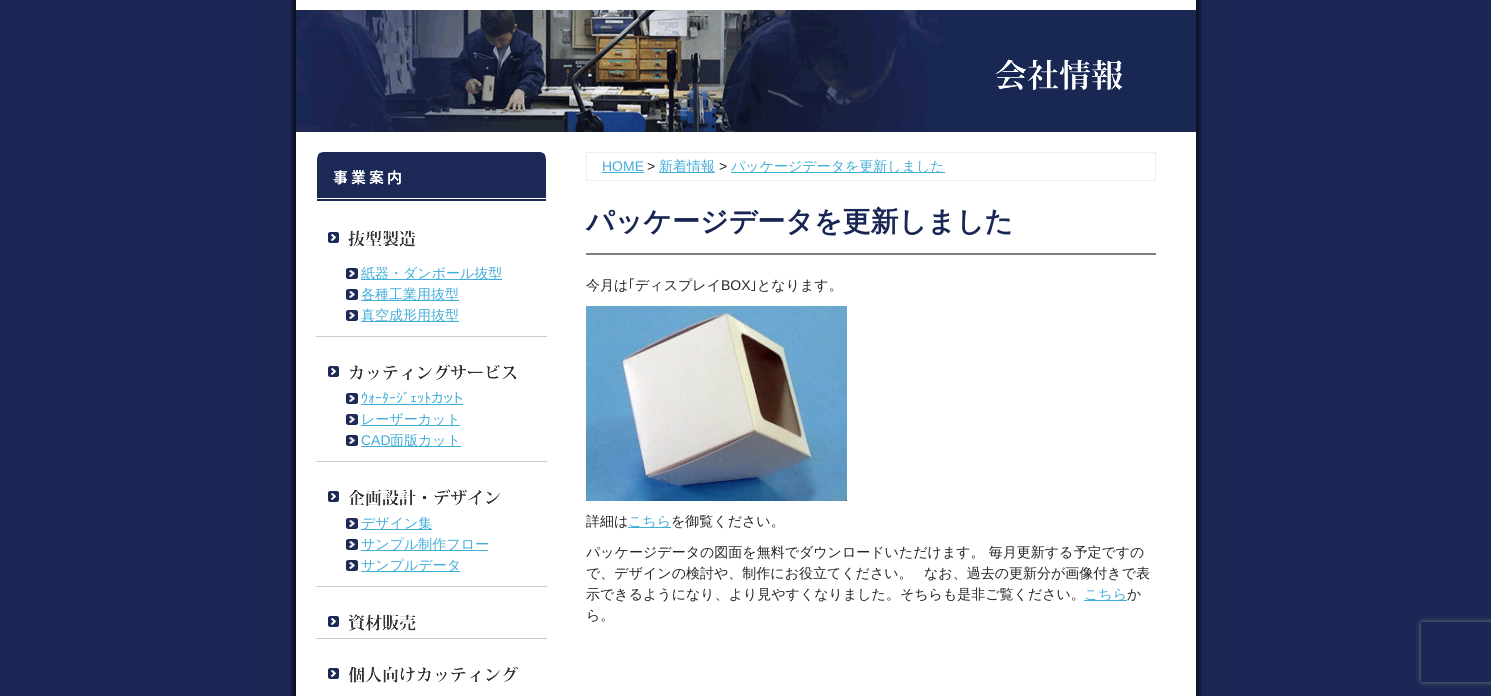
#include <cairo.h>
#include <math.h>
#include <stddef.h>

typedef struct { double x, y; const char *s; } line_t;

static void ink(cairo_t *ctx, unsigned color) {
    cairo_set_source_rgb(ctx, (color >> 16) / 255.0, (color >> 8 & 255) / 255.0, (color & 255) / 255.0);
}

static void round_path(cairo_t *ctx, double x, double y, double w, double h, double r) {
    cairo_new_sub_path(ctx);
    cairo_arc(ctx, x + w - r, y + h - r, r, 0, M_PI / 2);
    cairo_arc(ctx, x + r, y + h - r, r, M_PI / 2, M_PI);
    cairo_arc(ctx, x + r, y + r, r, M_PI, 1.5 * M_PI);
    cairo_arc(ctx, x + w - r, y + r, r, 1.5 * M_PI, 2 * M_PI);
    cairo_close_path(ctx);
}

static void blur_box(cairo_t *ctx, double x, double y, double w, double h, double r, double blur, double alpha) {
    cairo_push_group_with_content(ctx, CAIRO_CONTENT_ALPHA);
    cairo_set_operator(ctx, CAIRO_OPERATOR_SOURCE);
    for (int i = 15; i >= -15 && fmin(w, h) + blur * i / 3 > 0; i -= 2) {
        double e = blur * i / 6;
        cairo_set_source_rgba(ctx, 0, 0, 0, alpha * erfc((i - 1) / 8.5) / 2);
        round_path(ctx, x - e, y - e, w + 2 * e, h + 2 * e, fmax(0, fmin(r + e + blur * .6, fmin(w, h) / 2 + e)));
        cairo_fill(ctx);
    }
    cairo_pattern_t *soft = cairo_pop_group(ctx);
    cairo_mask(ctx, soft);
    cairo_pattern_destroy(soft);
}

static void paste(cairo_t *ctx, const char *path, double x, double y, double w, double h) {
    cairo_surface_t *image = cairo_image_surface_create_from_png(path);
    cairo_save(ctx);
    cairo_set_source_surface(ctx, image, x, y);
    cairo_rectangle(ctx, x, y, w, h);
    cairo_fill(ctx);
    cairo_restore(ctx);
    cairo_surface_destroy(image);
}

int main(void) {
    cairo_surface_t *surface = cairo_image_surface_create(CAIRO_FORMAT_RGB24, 1491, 696);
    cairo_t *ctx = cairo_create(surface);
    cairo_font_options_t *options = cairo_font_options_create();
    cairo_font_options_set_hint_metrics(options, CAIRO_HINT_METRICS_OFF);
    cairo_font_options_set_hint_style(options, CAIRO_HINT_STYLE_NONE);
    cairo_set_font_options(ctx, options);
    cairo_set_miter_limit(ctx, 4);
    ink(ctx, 0x1B2856);
    cairo_paint(ctx);
    paste(ctx, "media/1.png", 266, 0, 960, 696);
    paste(ctx, "media/2.png", 296, 10, 900, 122);
    paste(ctx, "media/3.png", 317, 152, 229, 49);
    paste(ctx, "media/4.png", 328, 230, 88, 17);
    paste(ctx, "media/5.png", 346, 268, 12, 11);
    ink(ctx, 0x41ADD9);
    cairo_rectangle(ctx, 361, 279, 141, 1);
    cairo_fill(ctx);
    cairo_select_font_face(ctx, "WenQuanYi Zen Hei Medium", CAIRO_FONT_SLANT_NORMAL, CAIRO_FONT_WEIGHT_NORMAL);
    cairo_set_font_size(ctx, 14);
    cairo_move_to(ctx, 361, 278);
    cairo_show_text(ctx, "紙器・ダンボール抜型");
    paste(ctx, "media/5.png", 346, 289, 12, 11);
    cairo_rectangle(ctx, 361, 300, 98, 1);
    cairo_fill(ctx);
    cairo_move_to(ctx, 361, 299);
    cairo_show_text(ctx, "各種工業用抜型");
    paste(ctx, "media/5.png", 346, 310, 12, 11);
    cairo_rectangle(ctx, 361, 321, 98, 1);
    cairo_fill(ctx);
    cairo_move_to(ctx, 361, 320);
    cairo_show_text(ctx, "真空成形用抜型");
    paste(ctx, "media/6.png", 316, 336, 231, 45);
    paste(ctx, "media/5.png", 346, 393, 12, 11);
    cairo_select_font_face(ctx, "IPAPGothic", CAIRO_FONT_SLANT_NORMAL, CAIRO_FONT_WEIGHT_NORMAL);
    cairo_move_to(ctx, 361, 403);
    cairo_show_text(ctx, "ｳｫｰﾀｰｼﾞｪｯﾄカット");
    cairo_rectangle(ctx, 361, 404, 102, 1);
    cairo_fill(ctx);
    paste(ctx, "media/5.png", 346, 414, 12, 11);
    cairo_rectangle(ctx, 361, 425, 99, 1);
    cairo_fill(ctx);
    cairo_select_font_face(ctx, "WenQuanYi Zen Hei Medium", CAIRO_FONT_SLANT_NORMAL, CAIRO_FONT_WEIGHT_NORMAL);
    cairo_move_to(ctx, 361, 424);
    cairo_show_text(ctx, "レーザーカット");
    paste(ctx, "media/5.png", 346, 435, 12, 11);
    cairo_select_font_face(ctx, "Liberation Sans", CAIRO_FONT_SLANT_NORMAL, CAIRO_FONT_WEIGHT_NORMAL);
    cairo_move_to(ctx, 361, 445);
    cairo_show_text(ctx, "CAD");
    cairo_rectangle(ctx, 361, 446, 100, 1);
    cairo_fill(ctx);
    cairo_select_font_face(ctx, "WenQuanYi Zen Hei Medium", CAIRO_FONT_SLANT_NORMAL, CAIRO_FONT_WEIGHT_NORMAL);
    cairo_move_to(ctx, 390, 445);
    cairo_show_text(ctx, "面版カット");
    paste(ctx, "media/7.png", 316, 461, 231, 45);
    paste(ctx, "media/5.png", 346, 518, 12, 11);
    cairo_rectangle(ctx, 361, 529, 71, 1);
    cairo_fill(ctx);
    cairo_move_to(ctx, 361, 528);
    cairo_show_text(ctx, "デザイン集");
    paste(ctx, "media/5.png", 346, 539, 12, 11);
    cairo_rectangle(ctx, 361, 550, 127, 1);
    cairo_fill(ctx);
    cairo_move_to(ctx, 361, 549);
    cairo_show_text(ctx, "サンプル制作フロー");
    paste(ctx, "media/5.png", 346, 560, 12, 11);
    cairo_rectangle(ctx, 361, 571, 99, 1);
    cairo_fill(ctx);
    cairo_move_to(ctx, 361, 570);
    cairo_show_text(ctx, "サンプルデータ");
    paste(ctx, "media/8.png", 316, 586, 231, 45);
    paste(ctx, "media/9.png", 316, 638, 231, 45);
    cairo_rectangle(ctx, 586.5, 152.5, 569, 28);
    ink(ctx, 0xEEEEEE);
    cairo_set_line_width(ctx, 1);
    cairo_stroke(ctx);
    cairo_select_font_face(ctx, "Liberation Sans", CAIRO_FONT_SLANT_NORMAL, CAIRO_FONT_WEIGHT_NORMAL);
    ink(ctx, 0x41ADD9);
    cairo_move_to(ctx, 602, 171);
    cairo_show_text(ctx, "HOME");
    cairo_rectangle(ctx, 602, 172, 42, 1);
    cairo_fill(ctx);
    ink(ctx, 0x252525);
    cairo_move_to(ctx, 647, 171);
    cairo_show_text(ctx, ">");
    ink(ctx, 0x41ADD9);
    cairo_rectangle(ctx, 659, 172, 56, 1);
    cairo_fill(ctx);
    cairo_select_font_face(ctx, "WenQuanYi Zen Hei Medium", CAIRO_FONT_SLANT_NORMAL, CAIRO_FONT_WEIGHT_NORMAL);
    cairo_move_to(ctx, 659, 171);
    cairo_show_text(ctx, "新着情報");
    cairo_select_font_face(ctx, "Liberation Sans", CAIRO_FONT_SLANT_NORMAL, CAIRO_FONT_WEIGHT_NORMAL);
    ink(ctx, 0x252525);
    cairo_move_to(ctx, 719, 171);
    cairo_show_text(ctx, ">");
    ink(ctx, 0x41ADD9);
    cairo_rectangle(ctx, 731, 172, 214, 1);
    cairo_fill(ctx);
    cairo_select_font_face(ctx, "WenQuanYi Zen Hei Medium", CAIRO_FONT_SLANT_NORMAL, CAIRO_FONT_WEIGHT_NORMAL);
    cairo_move_to(ctx, 731, 171);
    cairo_show_text(ctx, "パッケージデータを更新しました");
    ink(ctx, 0x808080);
    cairo_rectangle(ctx, 586, 253, 570, 2);
    cairo_fill(ctx);
    cairo_select_font_face(ctx, "WenQuanYi Zen Hei", CAIRO_FONT_SLANT_NORMAL, CAIRO_FONT_WEIGHT_BOLD);
    cairo_set_font_size(ctx, 28);
    ink(ctx, 0x192654);
    cairo_move_to(ctx, 586, 231);
    cairo_show_text(ctx, "パッケージデータを更新しました");
    cairo_select_font_face(ctx, "WenQuanYi Zen Hei Medium", CAIRO_FONT_SLANT_NORMAL, CAIRO_FONT_WEIGHT_NORMAL);
    cairo_set_font_size(ctx, 14);
    ink(ctx, 0x252525);
    cairo_move_to(ctx, 586, 290);
    cairo_show_text(ctx, "今月は");
    cairo_select_font_face(ctx, "IPAPGothic", CAIRO_FONT_SLANT_NORMAL, CAIRO_FONT_WEIGHT_NORMAL);
    cairo_move_to(ctx, 628, 290);
    cairo_show_text(ctx, "｢");
    cairo_select_font_face(ctx, "WenQuanYi Zen Hei Medium", CAIRO_FONT_SLANT_NORMAL, CAIRO_FONT_WEIGHT_NORMAL);
    cairo_move_to(ctx, 635, 290);
    cairo_show_text(ctx, "ディスプレイ");
    cairo_select_font_face(ctx, "Liberation Sans", CAIRO_FONT_SLANT_NORMAL, CAIRO_FONT_WEIGHT_NORMAL);
    cairo_move_to(ctx, 721, 290);
    cairo_show_text(ctx, "BOX");
    cairo_select_font_face(ctx, "IPAPGothic", CAIRO_FONT_SLANT_NORMAL, CAIRO_FONT_WEIGHT_NORMAL);
    cairo_move_to(ctx, 750, 290);
    cairo_show_text(ctx, "｣");
    cairo_select_font_face(ctx, "WenQuanYi Zen Hei Medium", CAIRO_FONT_SLANT_NORMAL, CAIRO_FONT_WEIGHT_NORMAL);
    cairo_move_to(ctx, 757, 290);
    cairo_show_text(ctx, "となります。");
    paste(ctx, "media/10.png", 586, 306, 261, 195);
    cairo_move_to(ctx, 586, 526);
    cairo_show_text(ctx, "詳細は");
    ink(ctx, 0x41ADD9);
    cairo_rectangle(ctx, 628, 527, 43, 1);
    cairo_fill(ctx);
    cairo_move_to(ctx, 628, 526);
    cairo_show_text(ctx, "こちら");
    ink(ctx, 0x252525);
    {
        static const line_t items[] = {
            {671, 526, "を御覧ください。"},
            {586, 557, "パッケージデータの図面を無料でダウンロードいただけます。 毎月更新する予定ですの"},
            {586, 578, "で、デザインの検討や、制作にお役立てください。"},
            {924, 578, "なお、過去の更新分が画像付きで表"},
            {586, 599, "示できるようになり、より見やすくなりました。そちらも是非ご覧ください。"},
        };
        for (size_t i = 0; i < sizeof items / sizeof *items; i++) {
            cairo_move_to(ctx, items[i].x, items[i].y);
            cairo_show_text(ctx, items[i].s);
        }
    }
    ink(ctx, 0x41ADD9);
    cairo_rectangle(ctx, 1084, 600, 43, 1);
    cairo_fill(ctx);
    cairo_move_to(ctx, 1084, 599);
    cairo_show_text(ctx, "こちら");
    ink(ctx, 0x252525);
    cairo_move_to(ctx, 1127, 599);
    cairo_show_text(ctx, "か");
    cairo_move_to(ctx, 586, 620);
    cairo_show_text(ctx, "ら。");
    cairo_save(ctx);
    cairo_set_fill_rule(ctx, CAIRO_FILL_RULE_EVEN_ODD);
    cairo_new_path(ctx);
    cairo_move_to(ctx, 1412, 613);
    cairo_line_to(ctx, 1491, 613);
    cairo_line_to(ctx, 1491, 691);
    cairo_line_to(ctx, 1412, 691);
    cairo_close_path(ctx);
    cairo_move_to(ctx, 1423, 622);
    cairo_line_to(ctx, 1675, 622);
    cairo_curve_to(ctx, 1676, 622, 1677, 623, 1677, 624);
    cairo_line_to(ctx, 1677, 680);
    cairo_curve_to(ctx, 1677, 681, 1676, 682, 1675, 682);
    cairo_line_to(ctx, 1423, 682);
    cairo_curve_to(ctx, 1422, 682, 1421, 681, 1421, 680);
    cairo_line_to(ctx, 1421, 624);
    cairo_curve_to(ctx, 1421, 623, 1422, 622, 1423, 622);
    cairo_close_path(ctx);
    cairo_clip(ctx);
    ink(ctx, 0x808080);
    blur_box(ctx, 1421, 622, 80, 60, 2, 2.5, 1);
    cairo_restore(ctx);
    cairo_surface_write_to_png(surface, "image.png");
    cairo_font_options_destroy(options);
    cairo_destroy(ctx);
    cairo_surface_destroy(surface);
    return 0;
}
